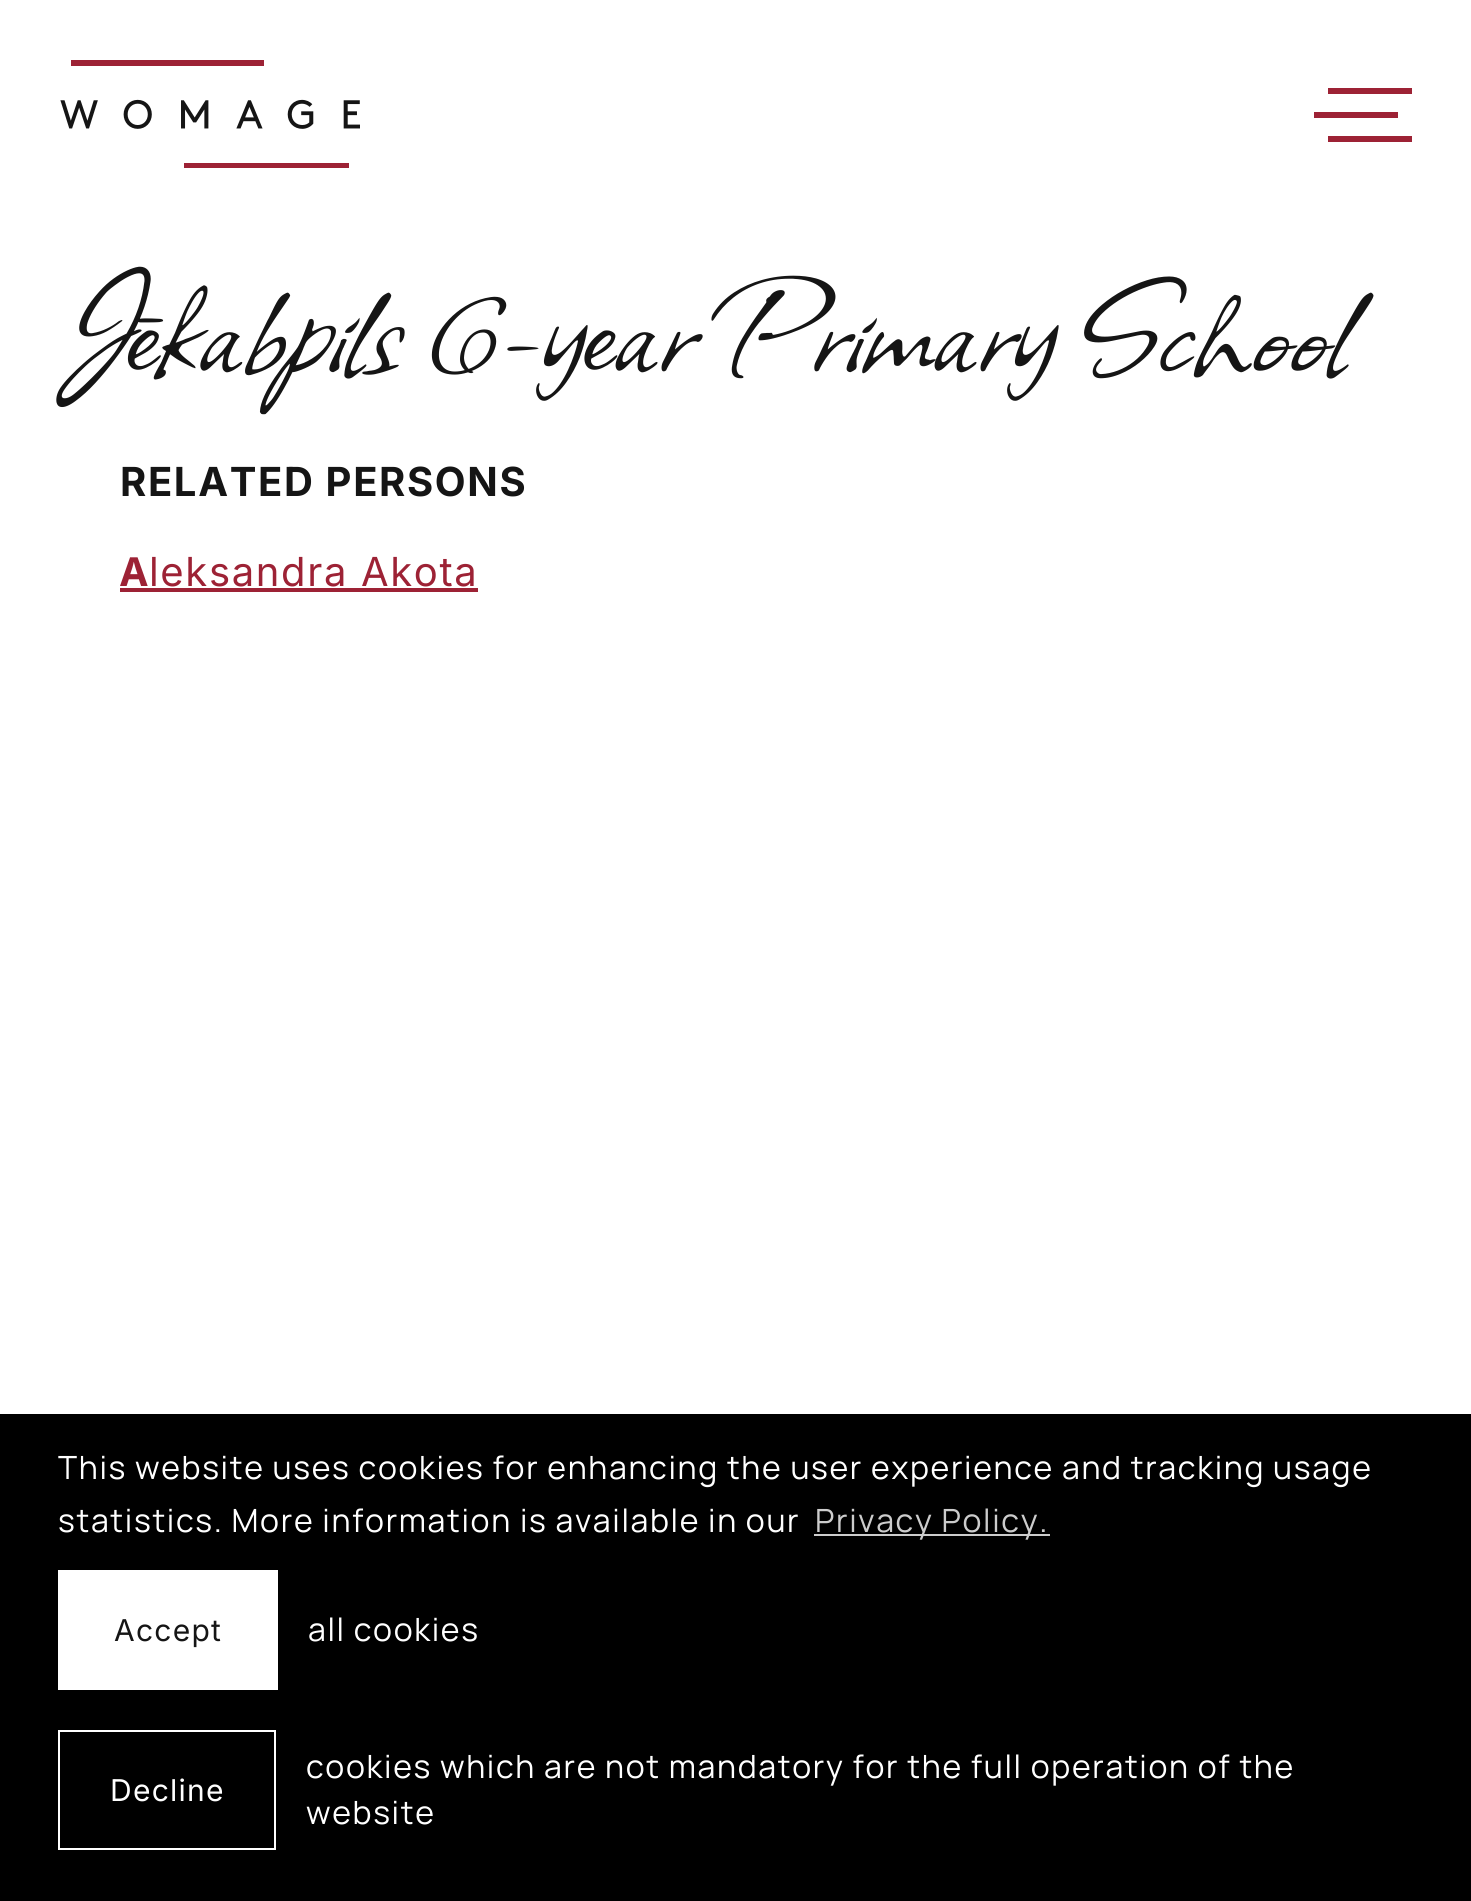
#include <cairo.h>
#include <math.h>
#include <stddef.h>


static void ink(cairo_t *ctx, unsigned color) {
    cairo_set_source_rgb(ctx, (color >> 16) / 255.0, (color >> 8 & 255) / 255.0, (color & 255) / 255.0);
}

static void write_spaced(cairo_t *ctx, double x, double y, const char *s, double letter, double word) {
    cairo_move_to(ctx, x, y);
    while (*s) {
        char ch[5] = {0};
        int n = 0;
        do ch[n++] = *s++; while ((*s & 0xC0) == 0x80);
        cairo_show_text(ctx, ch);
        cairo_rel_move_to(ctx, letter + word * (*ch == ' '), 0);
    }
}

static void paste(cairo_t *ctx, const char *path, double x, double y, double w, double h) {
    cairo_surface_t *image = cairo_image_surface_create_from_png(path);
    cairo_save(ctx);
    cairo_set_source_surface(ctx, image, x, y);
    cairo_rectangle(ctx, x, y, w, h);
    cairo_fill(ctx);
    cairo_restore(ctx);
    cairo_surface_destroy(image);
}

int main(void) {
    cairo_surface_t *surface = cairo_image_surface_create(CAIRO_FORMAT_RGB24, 1471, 1901);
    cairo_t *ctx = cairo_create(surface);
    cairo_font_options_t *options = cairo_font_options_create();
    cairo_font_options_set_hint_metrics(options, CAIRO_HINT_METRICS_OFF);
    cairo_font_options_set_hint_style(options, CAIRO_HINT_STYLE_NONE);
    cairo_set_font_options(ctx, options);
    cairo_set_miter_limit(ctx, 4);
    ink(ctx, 0xFFFFFF);
    cairo_paint(ctx);
    paste(ctx, "media/1.png", 60, 60, 300, 108);
    paste(ctx, "media/2.png", 1314, 88, 98, 54);
    cairo_select_font_face(ctx, "Allison", CAIRO_FONT_SLANT_NORMAL, CAIRO_FONT_WEIGHT_NORMAL);
    cairo_set_font_size(ctx, 160);
    ink(ctx, 0x151515);
    cairo_move_to(ctx, 60, 368);
    cairo_show_text(ctx, "Jēkabpils 6-year Primary School");
    cairo_select_font_face(ctx, "Inter", CAIRO_FONT_SLANT_NORMAL, CAIRO_FONT_WEIGHT_BOLD);
    cairo_set_font_size(ctx, 40);
    write_spaced(ctx, 120, 496, "RELATED PERSONS", 1.65, 0);
    cairo_select_font_face(ctx, "Noto Sans", CAIRO_FONT_SLANT_NORMAL, CAIRO_FONT_WEIGHT_BOLD);
    ink(ctx, 0x9D2235);
    write_spaced(ctx, 120, 586, "A", 1.65, 0);
    cairo_rectangle(ctx, 120, 588, 358, 4);
    cairo_fill(ctx);
    cairo_select_font_face(ctx, "Inter", CAIRO_FONT_SLANT_NORMAL, CAIRO_FONT_WEIGHT_NORMAL);
    write_spaced(ctx, 149, 586, "leksandra Akota", 1.65, 0);
    ink(ctx, 0x000000);
    cairo_rectangle(ctx, 0, 1414, 1471, 487);
    cairo_fill(ctx);
    cairo_select_font_face(ctx, "Manrope", CAIRO_FONT_SLANT_NORMAL, CAIRO_FONT_WEIGHT_NORMAL);
    cairo_set_font_size(ctx, 32);
    ink(ctx, 0xFFFFFF);
    write_spaced(ctx, 58, 1479, "This website uses cookies for enhancing the user experience and tracking usage", 1.65, 0);
    write_spaced(ctx, 58, 1532, "statistics. More information is available in our", 1.65, 0);
    ink(ctx, 0xCCCCCC);
    cairo_rectangle(ctx, 814, 1534, 236, 2);
    cairo_fill(ctx);
    write_spaced(ctx, 815, 1532, "Privacy Policy.", 1.65, 0);
    ink(ctx, 0xFFFFFF);
    cairo_rectangle(ctx, 58, 1570, 220, 120);
    cairo_fill(ctx);
    cairo_select_font_face(ctx, "Inter", CAIRO_FONT_SLANT_NORMAL, CAIRO_FONT_WEIGHT_NORMAL);
    cairo_set_font_size(ctx, 30);
    ink(ctx, 0x151515);
    write_spaced(ctx, 114, 1641, "Accept", 1.25, 0);
    cairo_select_font_face(ctx, "Manrope", CAIRO_FONT_SLANT_NORMAL, CAIRO_FONT_WEIGHT_NORMAL);
    cairo_set_font_size(ctx, 32);
    ink(ctx, 0xFFFFFF);
    write_spaced(ctx, 308, 1641, "all cookies", 1.65, 0);
    cairo_rectangle(ctx, 59, 1731, 216, 118);
    cairo_stroke(ctx);
    cairo_select_font_face(ctx, "Inter", CAIRO_FONT_SLANT_NORMAL, CAIRO_FONT_WEIGHT_NORMAL);
    cairo_set_font_size(ctx, 30);
    write_spaced(ctx, 110, 1801, "Decline", 1.25, 0);
    cairo_select_font_face(ctx, "Manrope", CAIRO_FONT_SLANT_NORMAL, CAIRO_FONT_WEIGHT_NORMAL);
    cairo_set_font_size(ctx, 32);
    write_spaced(ctx, 306, 1778, "cookies which are not mandatory for the full operation of the", 1.65, 0);
    write_spaced(ctx, 306, 1824, "website", 1.65, 0);
    cairo_surface_write_to_png(surface, "image.png");
    cairo_font_options_destroy(options);
    cairo_destroy(ctx);
    cairo_surface_destroy(surface);
    return 0;
}
